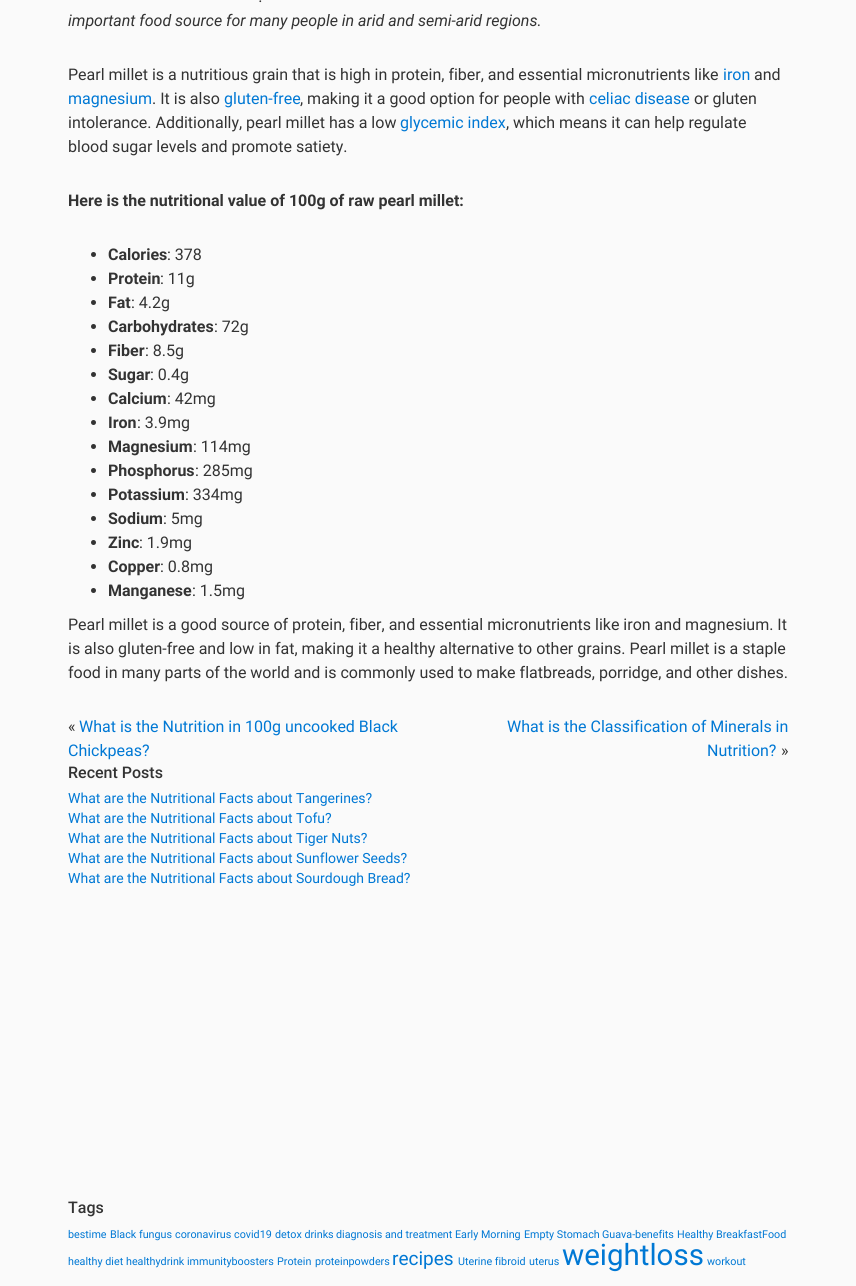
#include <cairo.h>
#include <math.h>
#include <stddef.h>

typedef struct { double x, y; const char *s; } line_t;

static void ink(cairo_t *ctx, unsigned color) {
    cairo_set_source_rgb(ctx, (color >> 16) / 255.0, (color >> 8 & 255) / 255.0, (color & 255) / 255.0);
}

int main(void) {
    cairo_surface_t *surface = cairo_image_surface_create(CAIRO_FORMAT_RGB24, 856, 1286);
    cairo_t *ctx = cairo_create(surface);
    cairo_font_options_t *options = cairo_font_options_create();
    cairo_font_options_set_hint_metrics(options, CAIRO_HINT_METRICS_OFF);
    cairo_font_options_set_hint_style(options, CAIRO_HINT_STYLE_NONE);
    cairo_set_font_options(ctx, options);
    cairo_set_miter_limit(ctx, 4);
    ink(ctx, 0xFAFAFA);
    cairo_paint(ctx);
    cairo_select_font_face(ctx, "Roboto", CAIRO_FONT_SLANT_ITALIC, CAIRO_FONT_WEIGHT_NORMAL);
    cairo_set_font_size(ctx, 16);
    ink(ctx, 0x333333);
    cairo_move_to(ctx, 259, 2);
    cairo_show_text(ctx, ".");
    cairo_move_to(ctx, 68, 26);
    cairo_show_text(ctx, "important food source for many people in arid and semi-arid regions.");
    cairo_select_font_face(ctx, "Roboto", CAIRO_FONT_SLANT_NORMAL, CAIRO_FONT_WEIGHT_NORMAL);
    cairo_move_to(ctx, 68, 80);
    cairo_show_text(ctx, "Pearl millet is a nutritious grain that is high in protein, fiber, and essential micronutrients like");
    ink(ctx, 0x0078D4);
    cairo_move_to(ctx, 723, 80);
    cairo_show_text(ctx, "iron");
    ink(ctx, 0x333333);
    cairo_move_to(ctx, 754, 80);
    cairo_show_text(ctx, "and");
    ink(ctx, 0x0078D4);
    cairo_move_to(ctx, 68, 104);
    cairo_show_text(ctx, "magnesium");
    ink(ctx, 0x333333);
    cairo_move_to(ctx, 152, 104);
    cairo_show_text(ctx, ". It is also");
    ink(ctx, 0x0078D4);
    cairo_move_to(ctx, 224, 104);
    cairo_show_text(ctx, "gluten-free");
    ink(ctx, 0x333333);
    cairo_move_to(ctx, 300, 104);
    cairo_show_text(ctx, ", making it a good option for people with");
    ink(ctx, 0x0078D4);
    cairo_move_to(ctx, 589, 104);
    cairo_show_text(ctx, "celiac disease");
    ink(ctx, 0x333333);
    cairo_move_to(ctx, 694, 104);
    cairo_show_text(ctx, "or gluten");
    cairo_move_to(ctx, 68, 128);
    cairo_show_text(ctx, "intolerance. Additionally, pearl millet has a low");
    ink(ctx, 0x0078D4);
    cairo_move_to(ctx, 400, 128);
    cairo_show_text(ctx, "glycemic index");
    ink(ctx, 0x333333);
    cairo_move_to(ctx, 506, 128);
    cairo_show_text(ctx, ", which means it can help regulate");
    cairo_move_to(ctx, 68, 152);
    cairo_show_text(ctx, "blood sugar levels and promote satiety.");
    cairo_select_font_face(ctx, "Roboto", CAIRO_FONT_SLANT_NORMAL, CAIRO_FONT_WEIGHT_BOLD);
    cairo_move_to(ctx, 68, 206);
    cairo_show_text(ctx, "Here is the nutritional value of 100g of raw pearl millet:");
    cairo_new_path(ctx);
    cairo_arc(ctx, 93.5, 254.5, 2.5, 0, 2 * M_PI);
    cairo_fill(ctx);
    cairo_move_to(ctx, 108, 260);
    cairo_show_text(ctx, "Calories");
    cairo_select_font_face(ctx, "Roboto", CAIRO_FONT_SLANT_NORMAL, CAIRO_FONT_WEIGHT_NORMAL);
    cairo_move_to(ctx, 167, 260);
    cairo_show_text(ctx, ": 378");
    cairo_new_path(ctx);
    cairo_arc(ctx, 93.5, 278.5, 2.5, 0, 2 * M_PI);
    cairo_fill(ctx);
    cairo_select_font_face(ctx, "Roboto", CAIRO_FONT_SLANT_NORMAL, CAIRO_FONT_WEIGHT_BOLD);
    cairo_move_to(ctx, 108, 284);
    cairo_show_text(ctx, "Protein");
    cairo_select_font_face(ctx, "Roboto", CAIRO_FONT_SLANT_NORMAL, CAIRO_FONT_WEIGHT_NORMAL);
    cairo_move_to(ctx, 160, 284);
    cairo_show_text(ctx, ": 11g");
    cairo_new_path(ctx);
    cairo_arc(ctx, 93.5, 302.5, 2.5, 0, 2 * M_PI);
    cairo_fill(ctx);
    cairo_select_font_face(ctx, "Roboto", CAIRO_FONT_SLANT_NORMAL, CAIRO_FONT_WEIGHT_BOLD);
    cairo_move_to(ctx, 108, 308);
    cairo_show_text(ctx, "Fat");
    cairo_select_font_face(ctx, "Roboto", CAIRO_FONT_SLANT_NORMAL, CAIRO_FONT_WEIGHT_NORMAL);
    cairo_move_to(ctx, 131, 308);
    cairo_show_text(ctx, ": 4.2g");
    cairo_new_path(ctx);
    cairo_arc(ctx, 93.5, 326.5, 2.5, 0, 2 * M_PI);
    cairo_fill(ctx);
    cairo_select_font_face(ctx, "Roboto", CAIRO_FONT_SLANT_NORMAL, CAIRO_FONT_WEIGHT_BOLD);
    cairo_move_to(ctx, 108, 332);
    cairo_show_text(ctx, "Carbohydrates");
    cairo_select_font_face(ctx, "Roboto", CAIRO_FONT_SLANT_NORMAL, CAIRO_FONT_WEIGHT_NORMAL);
    cairo_move_to(ctx, 214, 332);
    cairo_show_text(ctx, ": 72g");
    cairo_new_path(ctx);
    cairo_arc(ctx, 93.5, 350.5, 2.5, 0, 2 * M_PI);
    cairo_fill(ctx);
    cairo_select_font_face(ctx, "Roboto", CAIRO_FONT_SLANT_NORMAL, CAIRO_FONT_WEIGHT_BOLD);
    cairo_move_to(ctx, 108, 356);
    cairo_show_text(ctx, "Fiber");
    cairo_select_font_face(ctx, "Roboto", CAIRO_FONT_SLANT_NORMAL, CAIRO_FONT_WEIGHT_NORMAL);
    cairo_move_to(ctx, 145, 356);
    cairo_show_text(ctx, ": 8.5g");
    cairo_new_path(ctx);
    cairo_arc(ctx, 93.5, 374.5, 2.5, 0, 2 * M_PI);
    cairo_fill(ctx);
    cairo_select_font_face(ctx, "Roboto", CAIRO_FONT_SLANT_NORMAL, CAIRO_FONT_WEIGHT_BOLD);
    cairo_move_to(ctx, 108, 380);
    cairo_show_text(ctx, "Sugar");
    cairo_select_font_face(ctx, "Roboto", CAIRO_FONT_SLANT_NORMAL, CAIRO_FONT_WEIGHT_NORMAL);
    cairo_move_to(ctx, 150, 380);
    cairo_show_text(ctx, ": 0.4g");
    cairo_new_path(ctx);
    cairo_arc(ctx, 93.5, 398.5, 2.5, 0, 2 * M_PI);
    cairo_fill(ctx);
    cairo_select_font_face(ctx, "Roboto", CAIRO_FONT_SLANT_NORMAL, CAIRO_FONT_WEIGHT_BOLD);
    cairo_move_to(ctx, 108, 404);
    cairo_show_text(ctx, "Calcium");
    cairo_select_font_face(ctx, "Roboto", CAIRO_FONT_SLANT_NORMAL, CAIRO_FONT_WEIGHT_NORMAL);
    cairo_move_to(ctx, 167, 404);
    cairo_show_text(ctx, ": 42mg");
    cairo_new_path(ctx);
    cairo_arc(ctx, 93.5, 422.5, 2.5, 0, 2 * M_PI);
    cairo_fill(ctx);
    cairo_select_font_face(ctx, "Roboto", CAIRO_FONT_SLANT_NORMAL, CAIRO_FONT_WEIGHT_BOLD);
    cairo_move_to(ctx, 108, 428);
    cairo_show_text(ctx, "Iron");
    cairo_select_font_face(ctx, "Roboto", CAIRO_FONT_SLANT_NORMAL, CAIRO_FONT_WEIGHT_NORMAL);
    cairo_move_to(ctx, 137, 428);
    cairo_show_text(ctx, ": 3.9mg");
    cairo_new_path(ctx);
    cairo_arc(ctx, 93.5, 446.5, 2.5, 0, 2 * M_PI);
    cairo_fill(ctx);
    cairo_select_font_face(ctx, "Roboto", CAIRO_FONT_SLANT_NORMAL, CAIRO_FONT_WEIGHT_BOLD);
    cairo_move_to(ctx, 108, 452);
    cairo_show_text(ctx, "Magnesium");
    cairo_select_font_face(ctx, "Roboto", CAIRO_FONT_SLANT_NORMAL, CAIRO_FONT_WEIGHT_NORMAL);
    cairo_move_to(ctx, 193, 452);
    cairo_show_text(ctx, ": 114mg");
    cairo_new_path(ctx);
    cairo_arc(ctx, 93.5, 470.5, 2.5, 0, 2 * M_PI);
    cairo_fill(ctx);
    cairo_select_font_face(ctx, "Roboto", CAIRO_FONT_SLANT_NORMAL, CAIRO_FONT_WEIGHT_BOLD);
    cairo_move_to(ctx, 108, 476);
    cairo_show_text(ctx, "Phosphorus");
    cairo_select_font_face(ctx, "Roboto", CAIRO_FONT_SLANT_NORMAL, CAIRO_FONT_WEIGHT_NORMAL);
    cairo_move_to(ctx, 195, 476);
    cairo_show_text(ctx, ": 285mg");
    cairo_new_path(ctx);
    cairo_arc(ctx, 93.5, 494.5, 2.5, 0, 2 * M_PI);
    cairo_fill(ctx);
    cairo_select_font_face(ctx, "Roboto", CAIRO_FONT_SLANT_NORMAL, CAIRO_FONT_WEIGHT_BOLD);
    cairo_move_to(ctx, 108, 500);
    cairo_show_text(ctx, "Potassium");
    cairo_select_font_face(ctx, "Roboto", CAIRO_FONT_SLANT_NORMAL, CAIRO_FONT_WEIGHT_NORMAL);
    cairo_move_to(ctx, 185, 500);
    cairo_show_text(ctx, ": 334mg");
    cairo_new_path(ctx);
    cairo_arc(ctx, 93.5, 518.5, 2.5, 0, 2 * M_PI);
    cairo_fill(ctx);
    cairo_select_font_face(ctx, "Roboto", CAIRO_FONT_SLANT_NORMAL, CAIRO_FONT_WEIGHT_BOLD);
    cairo_move_to(ctx, 108, 524);
    cairo_show_text(ctx, "Sodium");
    cairo_select_font_face(ctx, "Roboto", CAIRO_FONT_SLANT_NORMAL, CAIRO_FONT_WEIGHT_NORMAL);
    cairo_move_to(ctx, 163, 524);
    cairo_show_text(ctx, ": 5mg");
    cairo_new_path(ctx);
    cairo_arc(ctx, 93.5, 542.5, 2.5, 0, 2 * M_PI);
    cairo_fill(ctx);
    cairo_select_font_face(ctx, "Roboto", CAIRO_FONT_SLANT_NORMAL, CAIRO_FONT_WEIGHT_BOLD);
    cairo_move_to(ctx, 108, 548);
    cairo_show_text(ctx, "Zinc");
    cairo_select_font_face(ctx, "Roboto", CAIRO_FONT_SLANT_NORMAL, CAIRO_FONT_WEIGHT_NORMAL);
    cairo_move_to(ctx, 139, 548);
    cairo_show_text(ctx, ": 1.9mg");
    cairo_new_path(ctx);
    cairo_arc(ctx, 93.5, 566.5, 2.5, 0, 2 * M_PI);
    cairo_fill(ctx);
    cairo_select_font_face(ctx, "Roboto", CAIRO_FONT_SLANT_NORMAL, CAIRO_FONT_WEIGHT_BOLD);
    cairo_move_to(ctx, 108, 572);
    cairo_show_text(ctx, "Copper");
    cairo_select_font_face(ctx, "Roboto", CAIRO_FONT_SLANT_NORMAL, CAIRO_FONT_WEIGHT_NORMAL);
    cairo_move_to(ctx, 160, 572);
    cairo_show_text(ctx, ": 0.8mg");
    cairo_new_path(ctx);
    cairo_arc(ctx, 93.5, 590.5, 2.5, 0, 2 * M_PI);
    cairo_fill(ctx);
    cairo_select_font_face(ctx, "Roboto", CAIRO_FONT_SLANT_NORMAL, CAIRO_FONT_WEIGHT_BOLD);
    cairo_move_to(ctx, 108, 596);
    cairo_show_text(ctx, "Manganese");
    cairo_select_font_face(ctx, "Roboto", CAIRO_FONT_SLANT_NORMAL, CAIRO_FONT_WEIGHT_NORMAL);
    {
        static const line_t items[] = {
            {192, 596, ": 1.5mg"},
            {68, 630, "Pearl millet is a good source of protein, fiber, and essential micronutrients like iron and magnesium. It"},
            {68, 654, "is also gluten-free and low in fat, making it a healthy alternative to other grains. Pearl millet is a staple"},
            {68, 678, "food in many parts of the world and is commonly used to make flatbreads, porridge, and other dishes."},
            {68, 732, "«"},
        };
        for (size_t i = 0; i < sizeof items / sizeof *items; i++) {
            cairo_move_to(ctx, items[i].x, items[i].y);
            cairo_show_text(ctx, items[i].s);
        }
    }
    ink(ctx, 0x0078D4);
    {
        static const line_t items[] = {
            {79, 732, "What is the Nutrition in 100g uncooked Black"},
            {68, 756, "Chickpeas?"},
            {507, 732, "What is the Classification of Minerals in"},
            {707, 756, "Nutrition?"},
        };
        for (size_t i = 0; i < sizeof items / sizeof *items; i++) {
            cairo_move_to(ctx, items[i].x, items[i].y);
            cairo_show_text(ctx, items[i].s);
        }
    }
    ink(ctx, 0x333333);
    cairo_move_to(ctx, 781, 756);
    cairo_show_text(ctx, "»");
    cairo_select_font_face(ctx, "Roboto Medium", CAIRO_FONT_SLANT_NORMAL, CAIRO_FONT_WEIGHT_NORMAL);
    cairo_move_to(ctx, 68, 778);
    cairo_show_text(ctx, "Recent Posts");
    cairo_select_font_face(ctx, "Roboto", CAIRO_FONT_SLANT_NORMAL, CAIRO_FONT_WEIGHT_NORMAL);
    cairo_set_font_size(ctx, 14);
    ink(ctx, 0x0078D4);
    {
        static const line_t items[] = {
            {68, 803, "What are the Nutritional Facts about Tangerines?"},
            {68, 823, "What are the Nutritional Facts about Tofu?"},
            {68, 843, "What are the Nutritional Facts about Tiger Nuts?"},
            {68, 863, "What are the Nutritional Facts about Sunflower Seeds?"},
            {68, 883, "What are the Nutritional Facts about Sourdough Bread?"},
        };
        for (size_t i = 0; i < sizeof items / sizeof *items; i++) {
            cairo_move_to(ctx, items[i].x, items[i].y);
            cairo_show_text(ctx, items[i].s);
        }
    }
    cairo_select_font_face(ctx, "Roboto Medium", CAIRO_FONT_SLANT_NORMAL, CAIRO_FONT_WEIGHT_NORMAL);
    cairo_set_font_size(ctx, 16);
    ink(ctx, 0x333333);
    cairo_move_to(ctx, 68, 1213);
    cairo_show_text(ctx, "Tags");
    cairo_select_font_face(ctx, "Roboto", CAIRO_FONT_SLANT_NORMAL, CAIRO_FONT_WEIGHT_NORMAL);
    cairo_set_font_size(ctx, 10.75);
    ink(ctx, 0x0078D4);
    {
        static const line_t items[] = {
            {68, 1238, "bestime"},
            {110, 1238, "Black fungus"},
            {175, 1238, "coronavirus"},
            {234, 1238, "covid19"},
            {275, 1238, "detox drinks"},
            {336, 1238, "diagnosis and treatment"},
            {455, 1238, "Early Morning"},
            {524, 1238, "Empty Stomach"},
            {602, 1238, "Guava-benefits"},
            {677, 1238, "Healthy BreakfastFood"},
            {68, 1265, "healthy diet"},
            {126, 1265, "healthydrink"},
            {187, 1265, "immunityboosters"},
            {277, 1265, "Protein"},
            {315, 1265, "proteinpowders"},
        };
        for (size_t i = 0; i < sizeof items / sizeof *items; i++) {
            cairo_move_to(ctx, items[i].x, items[i].y);
            cairo_show_text(ctx, items[i].s);
        }
    }
    cairo_set_font_size(ctx, 19);
    cairo_move_to(ctx, 392, 1265);
    cairo_show_text(ctx, "recipes");
    cairo_set_font_size(ctx, 10.75);
    cairo_move_to(ctx, 458, 1265);
    cairo_show_text(ctx, "Uterine fibroid");
    cairo_move_to(ctx, 529, 1265);
    cairo_show_text(ctx, "uterus");
    cairo_set_font_size(ctx, 29.5);
    cairo_move_to(ctx, 562, 1265);
    cairo_show_text(ctx, "weightloss");
    cairo_set_font_size(ctx, 10.75);
    cairo_move_to(ctx, 707, 1265);
    cairo_show_text(ctx, "workout");
    cairo_surface_write_to_png(surface, "image.png");
    cairo_font_options_destroy(options);
    cairo_destroy(ctx);
    cairo_surface_destroy(surface);
    return 0;
}
